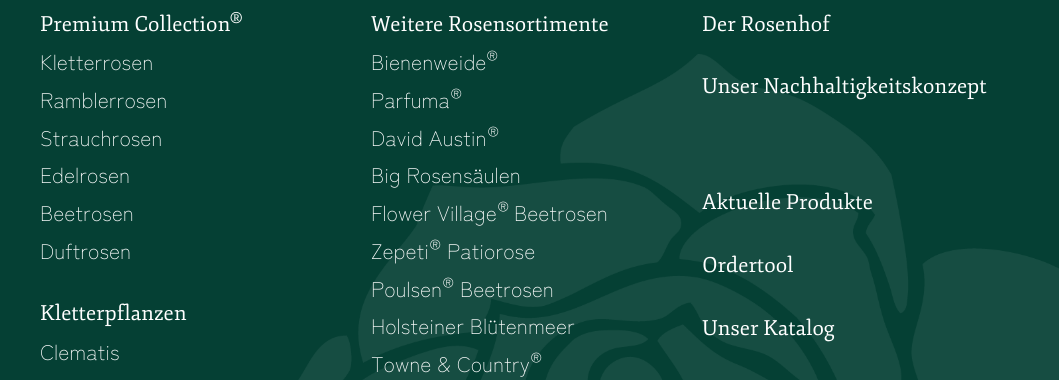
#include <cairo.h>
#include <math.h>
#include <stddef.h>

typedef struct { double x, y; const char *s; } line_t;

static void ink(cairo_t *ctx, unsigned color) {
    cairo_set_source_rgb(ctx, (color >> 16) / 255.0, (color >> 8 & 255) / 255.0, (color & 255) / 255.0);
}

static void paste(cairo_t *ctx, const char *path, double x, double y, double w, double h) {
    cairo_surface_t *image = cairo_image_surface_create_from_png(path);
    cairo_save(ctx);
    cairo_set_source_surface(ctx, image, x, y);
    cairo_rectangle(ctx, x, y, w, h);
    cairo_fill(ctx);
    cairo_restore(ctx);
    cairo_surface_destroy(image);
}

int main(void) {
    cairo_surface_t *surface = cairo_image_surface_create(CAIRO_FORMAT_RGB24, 1059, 380);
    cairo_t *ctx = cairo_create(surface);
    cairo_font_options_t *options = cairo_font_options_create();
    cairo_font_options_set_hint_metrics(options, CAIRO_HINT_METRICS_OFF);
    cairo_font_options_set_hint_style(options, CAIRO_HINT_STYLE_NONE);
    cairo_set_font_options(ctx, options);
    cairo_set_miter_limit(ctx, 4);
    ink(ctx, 0x054034);
    cairo_paint(ctx);
    cairo_select_font_face(ctx, "Fjord", CAIRO_FONT_SLANT_NORMAL, CAIRO_FONT_WEIGHT_NORMAL);
    cairo_set_font_size(ctx, 21);
    ink(ctx, 0xFFFFFF);
    cairo_move_to(ctx, 40, 31);
    cairo_show_text(ctx, "Premium Collection");
    cairo_set_font_size(ctx, 16);
    cairo_move_to(ctx, 230, 23);
    cairo_show_text(ctx, "®");
    cairo_select_font_face(ctx, "Zen Kaku Gothic New Light", CAIRO_FONT_SLANT_NORMAL, CAIRO_FONT_WEIGHT_NORMAL);
    cairo_set_font_size(ctx, 21);
    {
        static const line_t items[] = {
            {40, 70, "Kletterrosen"},
            {40, 108, "Ramblerrosen"},
            {40, 146, "Strauchrosen"},
            {40, 183, "Edelrosen"},
            {40, 221, "Beetrosen"},
            {40, 259, "Duftrosen"},
        };
        for (size_t i = 0; i < sizeof items / sizeof *items; i++) {
            cairo_move_to(ctx, items[i].x, items[i].y);
            cairo_show_text(ctx, items[i].s);
        }
    }
    cairo_select_font_face(ctx, "Fjord", CAIRO_FONT_SLANT_NORMAL, CAIRO_FONT_WEIGHT_NORMAL);
    cairo_move_to(ctx, 40, 320);
    cairo_show_text(ctx, "Kletterpflanzen");
    cairo_select_font_face(ctx, "Zen Kaku Gothic New Light", CAIRO_FONT_SLANT_NORMAL, CAIRO_FONT_WEIGHT_NORMAL);
    cairo_move_to(ctx, 40, 360);
    cairo_show_text(ctx, "Clematis");
    cairo_select_font_face(ctx, "Fjord", CAIRO_FONT_SLANT_NORMAL, CAIRO_FONT_WEIGHT_NORMAL);
    cairo_move_to(ctx, 371, 31);
    cairo_show_text(ctx, "Weitere Rosensortimente");
    cairo_select_font_face(ctx, "Zen Kaku Gothic New Light", CAIRO_FONT_SLANT_NORMAL, CAIRO_FONT_WEIGHT_NORMAL);
    cairo_move_to(ctx, 371, 70);
    cairo_show_text(ctx, "Bienenweide");
    cairo_set_font_size(ctx, 16);
    cairo_move_to(ctx, 486, 62);
    cairo_show_text(ctx, "®");
    cairo_set_font_size(ctx, 21);
    cairo_move_to(ctx, 371, 108);
    cairo_show_text(ctx, "Parfuma");
    cairo_set_font_size(ctx, 16);
    cairo_move_to(ctx, 450, 100);
    cairo_show_text(ctx, "®");
    cairo_set_font_size(ctx, 21);
    cairo_move_to(ctx, 371, 146);
    cairo_show_text(ctx, "David Austin");
    cairo_set_font_size(ctx, 16);
    cairo_move_to(ctx, 487, 138);
    cairo_show_text(ctx, "®");
    cairo_set_font_size(ctx, 21);
    cairo_move_to(ctx, 371, 183);
    cairo_show_text(ctx, "Big Rosensäulen");
    cairo_move_to(ctx, 371, 221);
    cairo_show_text(ctx, "Flower Village");
    cairo_set_font_size(ctx, 16);
    cairo_move_to(ctx, 497, 213);
    cairo_show_text(ctx, "®");
    cairo_set_font_size(ctx, 21);
    cairo_move_to(ctx, 514, 221);
    cairo_show_text(ctx, "Beetrosen");
    cairo_move_to(ctx, 371, 259);
    cairo_show_text(ctx, "Zepeti");
    cairo_set_font_size(ctx, 16);
    cairo_move_to(ctx, 429, 251);
    cairo_show_text(ctx, "®");
    cairo_set_font_size(ctx, 21);
    cairo_move_to(ctx, 447, 259);
    cairo_show_text(ctx, "Patiorose");
    cairo_move_to(ctx, 371, 297);
    cairo_show_text(ctx, "Poulsen");
    cairo_set_font_size(ctx, 16);
    cairo_move_to(ctx, 442, 289);
    cairo_show_text(ctx, "®");
    cairo_set_font_size(ctx, 21);
    {
        static const line_t items[] = {
            {460, 297, "Beetrosen"},
            {371, 334, "Holsteiner Blütenmeer"},
            {371, 372, "Towne & Country"},
        };
        for (size_t i = 0; i < sizeof items / sizeof *items; i++) {
            cairo_move_to(ctx, items[i].x, items[i].y);
            cairo_show_text(ctx, items[i].s);
        }
    }
    cairo_set_font_size(ctx, 16);
    cairo_move_to(ctx, 530, 364);
    cairo_show_text(ctx, "®");
    cairo_select_font_face(ctx, "Fjord", CAIRO_FONT_SLANT_NORMAL, CAIRO_FONT_WEIGHT_NORMAL);
    cairo_set_font_size(ctx, 21);
    {
        static const line_t items[] = {
            {702, 31, "Der Rosenhof"},
            {702, 93, "Unser Nachhaltigkeitskonzept"},
            {702, 209, "Aktuelle Produkte"},
            {702, 272, "Ordertool"},
            {702, 335, "Unser Katalog"},
        };
        for (size_t i = 0; i < sizeof items / sizeof *items; i++) {
            cairo_move_to(ctx, items[i].x, items[i].y);
            cairo_show_text(ctx, items[i].s);
        }
    }
    paste(ctx, "media/1.png", 298, 54, 761, 326);
    cairo_surface_write_to_png(surface, "image.png");
    cairo_font_options_destroy(options);
    cairo_destroy(ctx);
    cairo_surface_destroy(surface);
    return 0;
}
